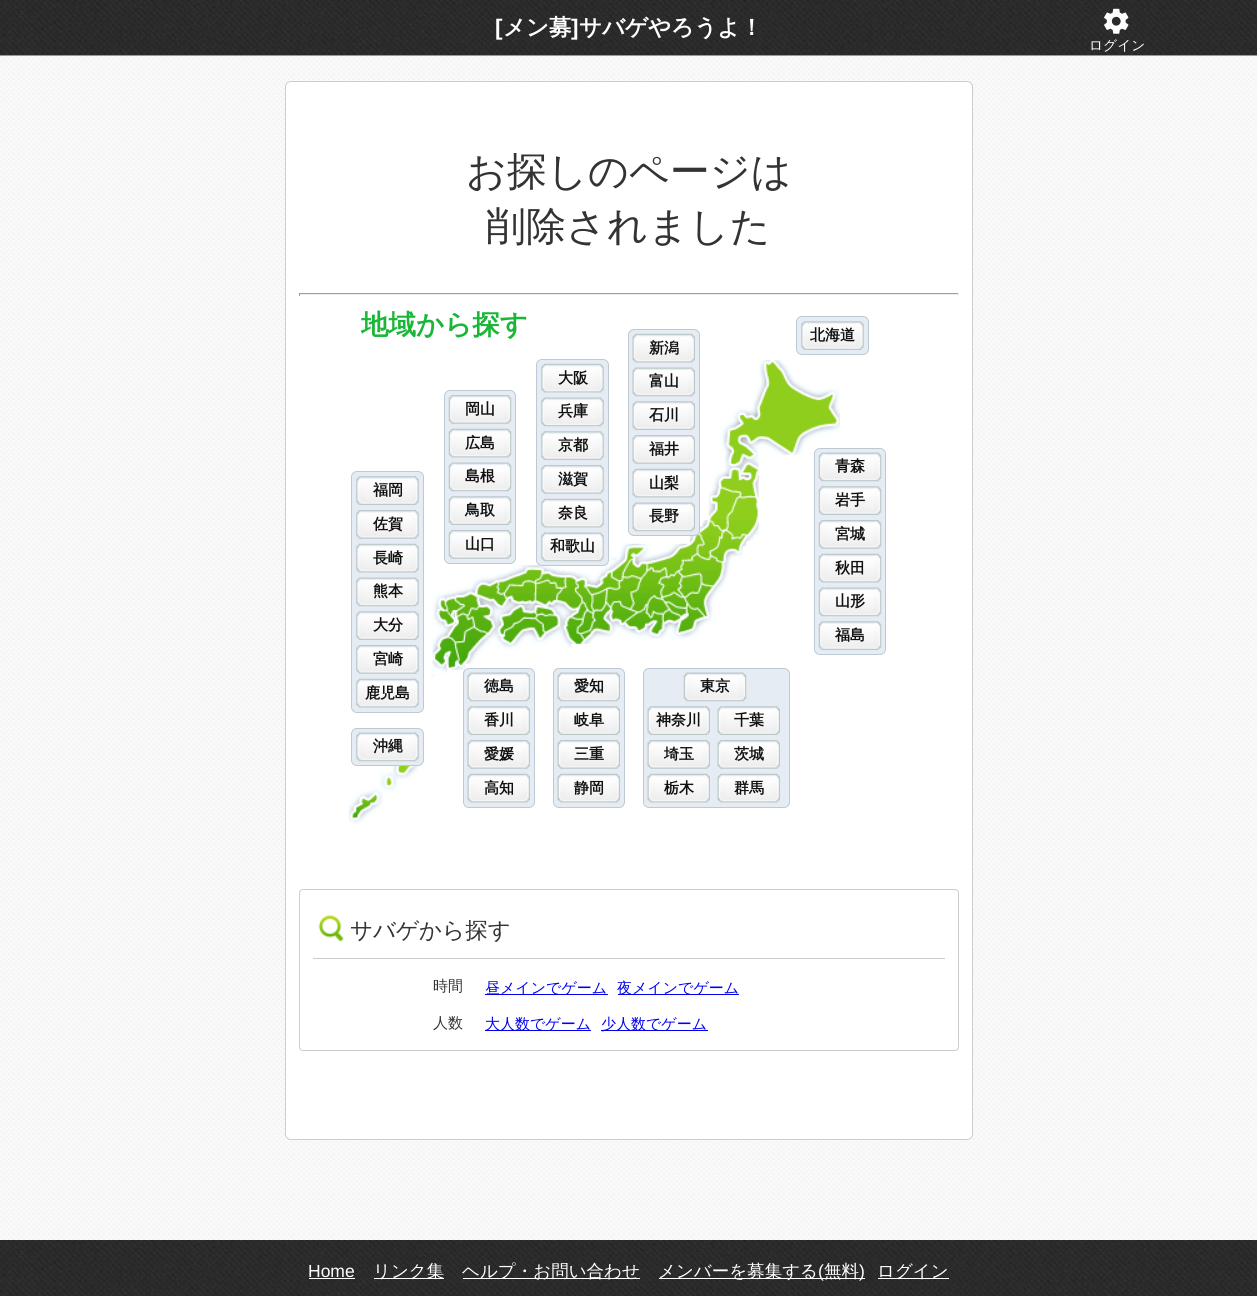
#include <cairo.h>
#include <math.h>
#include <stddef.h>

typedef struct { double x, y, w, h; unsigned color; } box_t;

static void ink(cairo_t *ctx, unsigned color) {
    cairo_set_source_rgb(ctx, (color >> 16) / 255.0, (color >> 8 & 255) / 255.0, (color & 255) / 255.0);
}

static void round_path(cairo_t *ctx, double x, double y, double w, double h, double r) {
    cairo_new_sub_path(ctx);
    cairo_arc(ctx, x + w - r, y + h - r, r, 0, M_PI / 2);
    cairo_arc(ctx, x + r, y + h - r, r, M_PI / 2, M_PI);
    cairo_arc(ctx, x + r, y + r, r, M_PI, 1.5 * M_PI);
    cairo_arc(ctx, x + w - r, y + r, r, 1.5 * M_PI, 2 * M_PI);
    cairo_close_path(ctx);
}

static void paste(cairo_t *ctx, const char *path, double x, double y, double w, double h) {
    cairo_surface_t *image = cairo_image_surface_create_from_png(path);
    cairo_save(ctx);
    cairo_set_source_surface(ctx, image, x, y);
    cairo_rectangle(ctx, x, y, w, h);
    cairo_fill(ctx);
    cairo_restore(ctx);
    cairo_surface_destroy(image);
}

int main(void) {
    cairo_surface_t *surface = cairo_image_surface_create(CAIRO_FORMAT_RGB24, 1257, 1296);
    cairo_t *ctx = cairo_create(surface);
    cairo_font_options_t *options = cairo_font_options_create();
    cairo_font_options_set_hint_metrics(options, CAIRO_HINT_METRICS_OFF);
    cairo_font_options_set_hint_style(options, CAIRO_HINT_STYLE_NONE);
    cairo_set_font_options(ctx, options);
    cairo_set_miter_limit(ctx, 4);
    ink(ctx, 0xFFFFFF);
    cairo_paint(ctx);
    paste(ctx, "media/1.png", 0, 56, 1257, 1184);
    paste(ctx, "media/2.png", 0, 0, 1257, 55);
    cairo_select_font_face(ctx, "Liberation Sans", CAIRO_FONT_SLANT_NORMAL, CAIRO_FONT_WEIGHT_BOLD);
    cairo_set_font_size(ctx, 22.5);
    ink(ctx, 0xFFFFFF);
    cairo_move_to(ctx, 495, 35);
    cairo_show_text(ctx, "[");
    cairo_select_font_face(ctx, "WenQuanYi Zen Hei", CAIRO_FONT_SLANT_NORMAL, CAIRO_FONT_WEIGHT_BOLD);
    cairo_move_to(ctx, 503, 35);
    cairo_show_text(ctx, "メン募");
    cairo_select_font_face(ctx, "Liberation Sans", CAIRO_FONT_SLANT_NORMAL, CAIRO_FONT_WEIGHT_BOLD);
    cairo_move_to(ctx, 571, 35);
    cairo_show_text(ctx, "]");
    cairo_select_font_face(ctx, "WenQuanYi Zen Hei", CAIRO_FONT_SLANT_NORMAL, CAIRO_FONT_WEIGHT_BOLD);
    cairo_move_to(ctx, 579, 35);
    cairo_show_text(ctx, "サバゲやろうよ！");
    paste(ctx, "media/3.png", 1104, 8, 25, 26);
    cairo_select_font_face(ctx, "WenQuanYi Zen Hei Medium", CAIRO_FONT_SLANT_NORMAL, CAIRO_FONT_WEIGHT_NORMAL);
    cairo_set_font_size(ctx, 13.75);
    cairo_move_to(ctx, 1089, 50);
    cairo_show_text(ctx, "ログイン");
    ink(ctx, 0x999999);
    cairo_rectangle(ctx, 0, 55, 1257, 1);
    cairo_fill(ctx);
    ink(ctx, 0xFFFFFF);
    round_path(ctx, 285.5, 81.5, 687, 1058, 5.5);
    cairo_fill_preserve(ctx);
    ink(ctx, 0xCCCCCC);
    cairo_set_line_width(ctx, 1);
    cairo_stroke(ctx);
    cairo_set_font_size(ctx, 40);
    ink(ctx, 0x333333);
    cairo_move_to(ctx, 466, 185);
    cairo_show_text(ctx, "お探しのページは");
    cairo_move_to(ctx, 486, 240);
    cairo_show_text(ctx, "削除されました");
    {
        static const box_t items[] = {
            {299, 293, 660, 1, 0x9F9F9F},
            {958, 293, 1, 3, 0xEEEEEE},
            {299, 294, 660, 1, 0xEEEEEE},
            {299, 293, 1, 3, 0x9F9F9F},
        };
        for (size_t i = 0; i < sizeof items / sizeof *items; i++) {
            ink(ctx, items[i].color);
            cairo_rectangle(ctx, items[i].x, items[i].y, items[i].w, items[i].h);
            cairo_fill(ctx);
        }
    }
    paste(ctx, "media/4.png", 348, 360, 492, 465);
    cairo_select_font_face(ctx, "WenQuanYi Zen Hei", CAIRO_FONT_SLANT_NORMAL, CAIRO_FONT_WEIGHT_BOLD);
    cairo_set_font_size(ctx, 27.5);
    ink(ctx, 0x19B737);
    cairo_move_to(ctx, 361, 334);
    cairo_show_text(ctx, "地域から探す");
    ink(ctx, 0xE6ECF3);
    round_path(ctx, 796.5, 316.5, 72, 38, 5.5);
    cairo_fill_preserve(ctx);
    ink(ctx, 0xBDCAD4);
    cairo_stroke(ctx);
    paste(ctx, "media/5.png", 801, 321, 63, 29);
    cairo_set_font_size(ctx, 15);
    ink(ctx, 0x111111);
    cairo_move_to(ctx, 810, 340);
    cairo_show_text(ctx, "北海道");
    ink(ctx, 0xE6ECF3);
    round_path(ctx, 351.5, 471.5, 72, 241, 5.5);
    cairo_fill_preserve(ctx);
    ink(ctx, 0xBDCAD4);
    cairo_stroke(ctx);
    paste(ctx, "media/5.png", 356, 476, 63, 29);
    ink(ctx, 0x111111);
    cairo_move_to(ctx, 373, 495);
    cairo_show_text(ctx, "福岡");
    paste(ctx, "media/6.png", 356, 510, 63, 29);
    cairo_move_to(ctx, 373, 529);
    cairo_show_text(ctx, "佐賀");
    paste(ctx, "media/7.png", 356, 543, 63, 30);
    cairo_move_to(ctx, 373, 563);
    cairo_show_text(ctx, "長崎");
    paste(ctx, "media/8.png", 356, 577, 63, 30);
    cairo_move_to(ctx, 373, 596);
    cairo_show_text(ctx, "熊本");
    paste(ctx, "media/5.png", 356, 611, 63, 29);
    cairo_move_to(ctx, 373, 630);
    cairo_show_text(ctx, "大分");
    paste(ctx, "media/6.png", 356, 645, 63, 29);
    cairo_move_to(ctx, 373, 664);
    cairo_show_text(ctx, "宮崎");
    paste(ctx, "media/7.png", 356, 678, 63, 30);
    cairo_move_to(ctx, 365, 698);
    cairo_show_text(ctx, "鹿児島");
    ink(ctx, 0xE6ECF3);
    round_path(ctx, 444.5, 390.5, 71, 173, 5.5);
    cairo_fill_preserve(ctx);
    ink(ctx, 0xBDCAD4);
    cairo_stroke(ctx);
    paste(ctx, "media/9.png", 448, 395, 64, 29);
    ink(ctx, 0x111111);
    cairo_move_to(ctx, 465, 414);
    cairo_show_text(ctx, "岡山");
    paste(ctx, "media/10.png", 448, 428, 64, 30);
    cairo_move_to(ctx, 465, 448);
    cairo_show_text(ctx, "広島");
    paste(ctx, "media/11.png", 448, 462, 64, 30);
    cairo_move_to(ctx, 465, 481);
    cairo_show_text(ctx, "島根");
    paste(ctx, "media/12.png", 448, 496, 64, 29);
    cairo_move_to(ctx, 465, 515);
    cairo_show_text(ctx, "鳥取");
    paste(ctx, "media/9.png", 448, 530, 64, 29);
    cairo_move_to(ctx, 465, 549);
    cairo_show_text(ctx, "山口");
    ink(ctx, 0xE6ECF3);
    round_path(ctx, 536.5, 359.5, 72, 206, 5.5);
    cairo_fill_preserve(ctx);
    ink(ctx, 0xBDCAD4);
    cairo_stroke(ctx);
    paste(ctx, "media/7.png", 541, 363, 63, 30);
    ink(ctx, 0x111111);
    cairo_move_to(ctx, 558, 383);
    cairo_show_text(ctx, "大阪");
    paste(ctx, "media/13.png", 541, 397, 63, 30);
    cairo_move_to(ctx, 558, 416);
    cairo_show_text(ctx, "兵庫");
    paste(ctx, "media/5.png", 541, 431, 63, 29);
    cairo_move_to(ctx, 558, 450);
    cairo_show_text(ctx, "京都");
    paste(ctx, "media/6.png", 541, 465, 63, 29);
    cairo_move_to(ctx, 558, 484);
    cairo_show_text(ctx, "滋賀");
    paste(ctx, "media/7.png", 541, 498, 63, 30);
    cairo_move_to(ctx, 558, 518);
    cairo_show_text(ctx, "奈良");
    paste(ctx, "media/13.png", 541, 532, 63, 30);
    cairo_move_to(ctx, 550, 551);
    cairo_show_text(ctx, "和歌山");
    ink(ctx, 0xE6ECF3);
    round_path(ctx, 628.5, 329.5, 71, 206, 5.5);
    cairo_fill_preserve(ctx);
    ink(ctx, 0xBDCAD4);
    cairo_stroke(ctx);
    paste(ctx, "media/14.png", 632, 333, 63, 30);
    ink(ctx, 0x111111);
    cairo_move_to(ctx, 649, 353);
    cairo_show_text(ctx, "新潟");
    paste(ctx, "media/15.png", 632, 367, 63, 30);
    cairo_move_to(ctx, 649, 386);
    cairo_show_text(ctx, "富山");
    paste(ctx, "media/16.png", 632, 401, 63, 29);
    cairo_move_to(ctx, 649, 420);
    cairo_show_text(ctx, "石川");
    paste(ctx, "media/17.png", 632, 435, 63, 29);
    cairo_move_to(ctx, 649, 454);
    cairo_show_text(ctx, "福井");
    paste(ctx, "media/14.png", 632, 468, 63, 30);
    cairo_move_to(ctx, 649, 488);
    cairo_show_text(ctx, "山梨");
    paste(ctx, "media/15.png", 632, 502, 63, 30);
    cairo_move_to(ctx, 649, 521);
    cairo_show_text(ctx, "長野");
    ink(ctx, 0xE6ECF3);
    round_path(ctx, 814.5, 448.5, 71, 206, 5.5);
    cairo_fill_preserve(ctx);
    ink(ctx, 0xBDCAD4);
    cairo_stroke(ctx);
    paste(ctx, "media/18.png", 818, 452, 64, 30);
    ink(ctx, 0x111111);
    cairo_move_to(ctx, 835, 471);
    cairo_show_text(ctx, "青森");
    paste(ctx, "media/19.png", 818, 486, 64, 29);
    cairo_move_to(ctx, 835, 505);
    cairo_show_text(ctx, "岩手");
    paste(ctx, "media/20.png", 818, 520, 64, 29);
    cairo_move_to(ctx, 835, 539);
    cairo_show_text(ctx, "宮城");
    paste(ctx, "media/21.png", 818, 553, 64, 30);
    cairo_move_to(ctx, 835, 573);
    cairo_show_text(ctx, "秋田");
    paste(ctx, "media/22.png", 818, 587, 64, 30);
    cairo_move_to(ctx, 835, 606);
    cairo_show_text(ctx, "山形");
    paste(ctx, "media/19.png", 818, 621, 64, 29);
    cairo_move_to(ctx, 835, 640);
    cairo_show_text(ctx, "福島");
    ink(ctx, 0xE6ECF3);
    round_path(ctx, 351.5, 728.5, 72, 37, 5.5);
    cairo_fill_preserve(ctx);
    ink(ctx, 0xBDCAD4);
    cairo_stroke(ctx);
    paste(ctx, "media/13.png", 356, 732, 63, 30);
    ink(ctx, 0x111111);
    cairo_move_to(ctx, 373, 751);
    cairo_show_text(ctx, "沖縄");
    ink(ctx, 0xE6ECF3);
    round_path(ctx, 463.5, 668.5, 71, 139, 5.5);
    cairo_fill_preserve(ctx);
    ink(ctx, 0xBDCAD4);
    cairo_stroke(ctx);
    paste(ctx, "media/15.png", 467, 672, 63, 30);
    ink(ctx, 0x111111);
    cairo_move_to(ctx, 484, 691);
    cairo_show_text(ctx, "徳島");
    paste(ctx, "media/16.png", 467, 706, 63, 29);
    cairo_move_to(ctx, 484, 725);
    cairo_show_text(ctx, "香川");
    paste(ctx, "media/17.png", 467, 740, 63, 29);
    cairo_move_to(ctx, 484, 759);
    cairo_show_text(ctx, "愛媛");
    paste(ctx, "media/14.png", 467, 773, 63, 30);
    cairo_move_to(ctx, 484, 793);
    cairo_show_text(ctx, "高知");
    ink(ctx, 0xE6ECF3);
    round_path(ctx, 553.5, 668.5, 71, 139, 5.5);
    cairo_fill_preserve(ctx);
    ink(ctx, 0xBDCAD4);
    cairo_stroke(ctx);
    paste(ctx, "media/23.png", 557, 672, 63, 30);
    ink(ctx, 0x111111);
    cairo_move_to(ctx, 574, 691);
    cairo_show_text(ctx, "愛知");
    paste(ctx, "media/24.png", 557, 706, 63, 29);
    cairo_move_to(ctx, 574, 725);
    cairo_show_text(ctx, "岐阜");
    paste(ctx, "media/25.png", 557, 740, 63, 29);
    cairo_move_to(ctx, 574, 759);
    cairo_show_text(ctx, "三重");
    paste(ctx, "media/26.png", 557, 773, 63, 30);
    cairo_move_to(ctx, 574, 793);
    cairo_show_text(ctx, "静岡");
    ink(ctx, 0xE6ECF3);
    round_path(ctx, 643.5, 668.5, 146, 139, 5.5);
    cairo_fill_preserve(ctx);
    ink(ctx, 0xBDCAD4);
    cairo_stroke(ctx);
    paste(ctx, "media/18.png", 683, 672, 64, 30);
    ink(ctx, 0x111111);
    cairo_move_to(ctx, 700, 691);
    cairo_show_text(ctx, "東京");
    paste(ctx, "media/16.png", 647, 706, 63, 29);
    cairo_move_to(ctx, 656, 725);
    cairo_show_text(ctx, "神奈川");
    paste(ctx, "media/16.png", 717, 706, 63, 29);
    cairo_move_to(ctx, 734, 725);
    cairo_show_text(ctx, "千葉");
    paste(ctx, "media/17.png", 647, 740, 63, 29);
    cairo_move_to(ctx, 664, 759);
    cairo_show_text(ctx, "埼玉");
    paste(ctx, "media/17.png", 717, 740, 63, 29);
    cairo_move_to(ctx, 734, 759);
    cairo_show_text(ctx, "茨城");
    paste(ctx, "media/14.png", 647, 773, 63, 30);
    cairo_move_to(ctx, 664, 793);
    cairo_show_text(ctx, "栃木");
    paste(ctx, "media/14.png", 717, 773, 63, 30);
    cairo_move_to(ctx, 734, 793);
    cairo_show_text(ctx, "群馬");
    round_path(ctx, 299.5, 889.5, 659, 161, 3.5);
    ink(ctx, 0xCCCCCC);
    cairo_stroke(ctx);
    paste(ctx, "media/27.png", 318, 915, 26, 27);
    cairo_rectangle(ctx, 313, 958, 632, 1);
    cairo_fill(ctx);
    cairo_select_font_face(ctx, "WenQuanYi Zen Hei Medium", CAIRO_FONT_SLANT_NORMAL, CAIRO_FONT_WEIGHT_NORMAL);
    cairo_set_font_size(ctx, 22.5);
    ink(ctx, 0x333333);
    cairo_move_to(ctx, 350, 938);
    cairo_show_text(ctx, "サバゲから探す");
    cairo_set_font_size(ctx, 15);
    cairo_move_to(ctx, 433, 991);
    cairo_show_text(ctx, "時間");
    ink(ctx, 0x0000EE);
    cairo_rectangle(ctx, 485, 994, 123, 1);
    cairo_fill(ctx);
    cairo_move_to(ctx, 485, 993);
    cairo_show_text(ctx, "昼メインでゲーム");
    cairo_rectangle(ctx, 618, 994, 121, 1);
    cairo_fill(ctx);
    cairo_move_to(ctx, 617, 993);
    cairo_show_text(ctx, "夜メインでゲーム");
    ink(ctx, 0x333333);
    cairo_move_to(ctx, 433, 1028);
    cairo_show_text(ctx, "人数");
    ink(ctx, 0x0000EE);
    cairo_rectangle(ctx, 485, 1030, 106, 1);
    cairo_fill(ctx);
    cairo_move_to(ctx, 485, 1029);
    cairo_show_text(ctx, "大人数でゲーム");
    cairo_rectangle(ctx, 601, 1030, 107, 1);
    cairo_fill(ctx);
    cairo_move_to(ctx, 601, 1029);
    cairo_show_text(ctx, "少人数でゲーム");
    paste(ctx, "media/28.png", 0, 1240, 1257, 56);
    cairo_select_font_face(ctx, "Liberation Sans", CAIRO_FONT_SLANT_NORMAL, CAIRO_FONT_WEIGHT_NORMAL);
    cairo_set_font_size(ctx, 17.5);
    ink(ctx, 0xFFFFFF);
    cairo_move_to(ctx, 308, 1277);
    cairo_show_text(ctx, "Home");
    cairo_rectangle(ctx, 309, 1278, 46, 1);
    cairo_fill(ctx);
    cairo_rectangle(ctx, 374, 1278, 70, 1);
    cairo_fill(ctx);
    cairo_select_font_face(ctx, "WenQuanYi Zen Hei Medium", CAIRO_FONT_SLANT_NORMAL, CAIRO_FONT_WEIGHT_NORMAL);
    cairo_move_to(ctx, 373, 1277);
    cairo_show_text(ctx, "リンク集");
    cairo_rectangle(ctx, 463, 1278, 177, 1);
    cairo_fill(ctx);
    cairo_move_to(ctx, 462, 1277);
    cairo_show_text(ctx, "ヘルプ・お問い合わせ");
    cairo_rectangle(ctx, 659, 1278, 206, 1);
    cairo_fill(ctx);
    cairo_move_to(ctx, 658, 1277);
    cairo_show_text(ctx, "メンバーを募集する");
    cairo_select_font_face(ctx, "Liberation Sans", CAIRO_FONT_SLANT_NORMAL, CAIRO_FONT_WEIGHT_NORMAL);
    cairo_move_to(ctx, 818, 1277);
    cairo_show_text(ctx, "(");
    cairo_select_font_face(ctx, "WenQuanYi Zen Hei Medium", CAIRO_FONT_SLANT_NORMAL, CAIRO_FONT_WEIGHT_NORMAL);
    cairo_move_to(ctx, 824, 1277);
    cairo_show_text(ctx, "無料");
    cairo_select_font_face(ctx, "Liberation Sans", CAIRO_FONT_SLANT_NORMAL, CAIRO_FONT_WEIGHT_NORMAL);
    cairo_move_to(ctx, 859, 1277);
    cairo_show_text(ctx, ")");
    cairo_rectangle(ctx, 878, 1278, 71, 1);
    cairo_fill(ctx);
    cairo_select_font_face(ctx, "WenQuanYi Zen Hei Medium", CAIRO_FONT_SLANT_NORMAL, CAIRO_FONT_WEIGHT_NORMAL);
    cairo_move_to(ctx, 877, 1277);
    cairo_show_text(ctx, "ログイン");
    cairo_surface_write_to_png(surface, "image.png");
    cairo_font_options_destroy(options);
    cairo_destroy(ctx);
    cairo_surface_destroy(surface);
    return 0;
}
